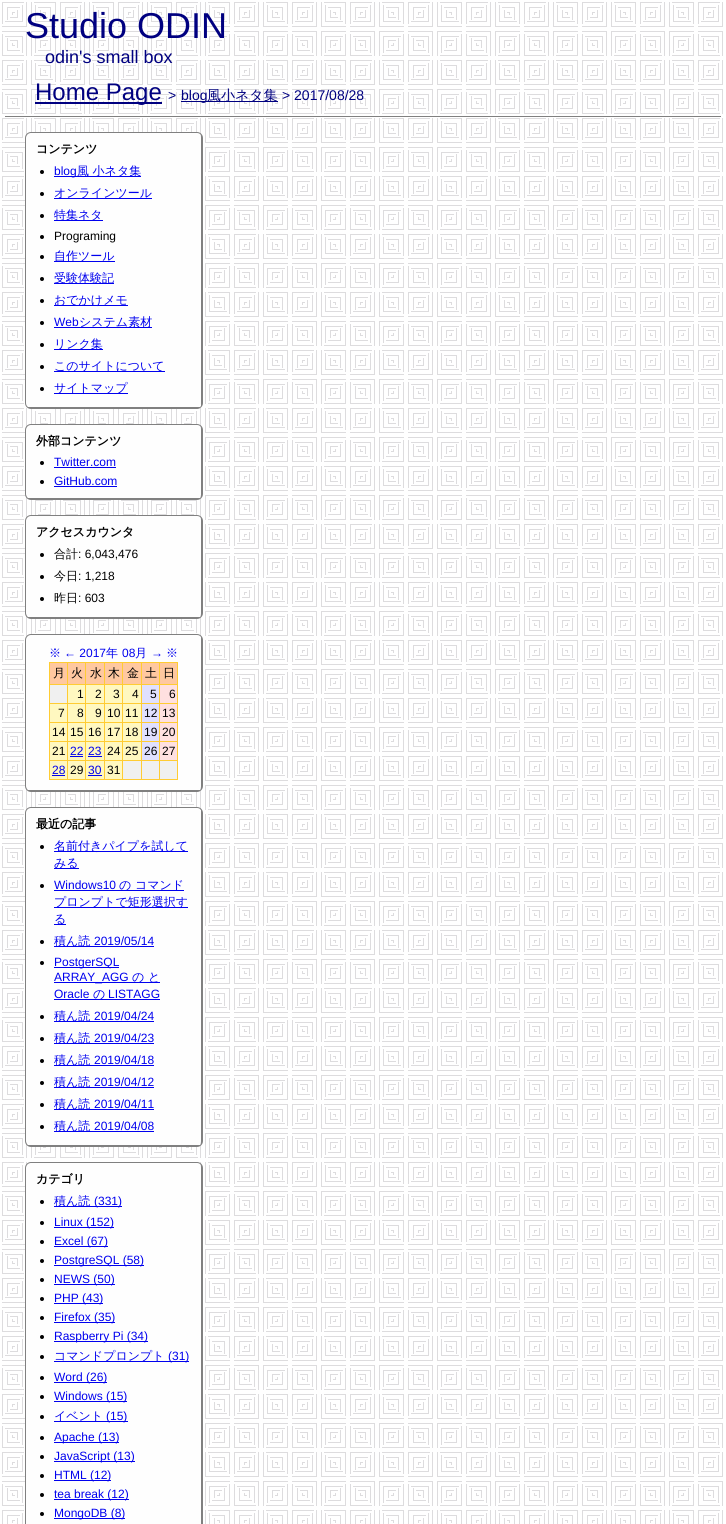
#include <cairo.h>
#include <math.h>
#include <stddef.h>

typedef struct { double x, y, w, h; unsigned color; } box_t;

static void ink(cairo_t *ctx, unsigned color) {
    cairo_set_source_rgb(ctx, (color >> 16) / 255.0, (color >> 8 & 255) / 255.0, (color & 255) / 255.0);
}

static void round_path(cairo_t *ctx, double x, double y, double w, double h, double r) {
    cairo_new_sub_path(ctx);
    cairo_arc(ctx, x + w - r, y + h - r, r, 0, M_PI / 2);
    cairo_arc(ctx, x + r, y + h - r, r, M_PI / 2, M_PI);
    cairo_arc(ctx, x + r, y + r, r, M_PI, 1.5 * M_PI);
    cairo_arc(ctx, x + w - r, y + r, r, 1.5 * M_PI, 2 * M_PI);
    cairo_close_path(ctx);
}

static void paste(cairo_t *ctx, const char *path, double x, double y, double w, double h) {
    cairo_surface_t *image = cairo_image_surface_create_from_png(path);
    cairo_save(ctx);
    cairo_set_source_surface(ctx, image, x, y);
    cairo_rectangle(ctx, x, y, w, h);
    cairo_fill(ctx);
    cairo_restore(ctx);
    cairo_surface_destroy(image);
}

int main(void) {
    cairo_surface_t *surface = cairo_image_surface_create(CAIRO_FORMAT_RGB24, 726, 1524);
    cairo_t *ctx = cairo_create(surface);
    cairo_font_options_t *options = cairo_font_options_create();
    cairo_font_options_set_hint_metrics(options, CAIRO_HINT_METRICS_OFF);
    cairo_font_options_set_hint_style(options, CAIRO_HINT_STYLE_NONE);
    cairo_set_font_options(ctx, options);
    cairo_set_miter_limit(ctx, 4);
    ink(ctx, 0xFFFFFF);
    cairo_paint(ctx);
    paste(ctx, "media/1.png", 0, 0, 726, 1524);
    ink(ctx, 0x808080);
    cairo_rectangle(ctx, 5, 116, 716, 1);
    cairo_fill(ctx);
    cairo_select_font_face(ctx, "Liberation Sans", CAIRO_FONT_SLANT_NORMAL, CAIRO_FONT_WEIGHT_NORMAL);
    cairo_set_font_size(ctx, 36);
    ink(ctx, 0x000080);
    cairo_move_to(ctx, 25, 38);
    cairo_show_text(ctx, "Studio ODIN");
    cairo_set_font_size(ctx, 18);
    cairo_move_to(ctx, 45, 63);
    cairo_show_text(ctx, "odin's small box");
    cairo_rectangle(ctx, 35, 102, 127, 2);
    cairo_fill(ctx);
    cairo_set_font_size(ctx, 24);
    cairo_move_to(ctx, 35, 100);
    cairo_show_text(ctx, "Home Page");
    cairo_set_font_size(ctx, 14);
    cairo_move_to(ctx, 168, 100);
    cairo_show_text(ctx, ">");
    cairo_rectangle(ctx, 181, 101, 97, 1);
    cairo_fill(ctx);
    cairo_move_to(ctx, 181, 100);
    cairo_show_text(ctx, "blog");
    cairo_select_font_face(ctx, "WenQuanYi Zen Hei Medium", CAIRO_FONT_SLANT_NORMAL, CAIRO_FONT_WEIGHT_NORMAL);
    cairo_move_to(ctx, 207, 100);
    cairo_show_text(ctx, "風小ネタ集");
    cairo_select_font_face(ctx, "Liberation Sans", CAIRO_FONT_SLANT_NORMAL, CAIRO_FONT_WEIGHT_NORMAL);
    cairo_move_to(ctx, 282, 100);
    cairo_show_text(ctx, "> 2017/08/28");
    ink(ctx, 0xFEFEFE);
    cairo_new_path(ctx);
    cairo_move_to(ctx, 31, 133);
    cairo_line_to(ctx, 197, 133);
    cairo_curve_to(ctx, 199, 133, 201, 135, 201, 138);
    cairo_line_to(ctx, 201, 403);
    cairo_curve_to(ctx, 201, 405, 199, 407, 197, 407);
    cairo_line_to(ctx, 31, 407);
    cairo_curve_to(ctx, 28, 407, 26, 405, 26, 403);
    cairo_line_to(ctx, 26, 138);
    cairo_curve_to(ctx, 26, 135, 28, 133, 31, 133);
    cairo_close_path(ctx);
    cairo_fill(ctx);
    round_path(ctx, 25.5, 132.5, 177, 276, 5.5);
    ink(ctx, 0x808080);
    cairo_set_line_width(ctx, 1);
    cairo_stroke(ctx);
    cairo_rectangle(ctx, 201, 135, 1, 271);
    cairo_fill(ctx);
    cairo_rectangle(ctx, 28, 407, 172, 1);
    cairo_fill(ctx);
    cairo_select_font_face(ctx, "WenQuanYi Zen Hei", CAIRO_FONT_SLANT_NORMAL, CAIRO_FONT_WEIGHT_BOLD);
    cairo_set_font_size(ctx, 12);
    ink(ctx, 0x000000);
    cairo_move_to(ctx, 36, 153);
    cairo_show_text(ctx, "コンテンツ");
    cairo_new_path(ctx);
    cairo_arc(ctx, 42, 172, 2, 0, 2 * M_PI);
    cairo_fill(ctx);
    ink(ctx, 0x0000EE);
    cairo_rectangle(ctx, 54, 176, 87, 1);
    cairo_fill(ctx);
    cairo_select_font_face(ctx, "Liberation Sans", CAIRO_FONT_SLANT_NORMAL, CAIRO_FONT_WEIGHT_NORMAL);
    cairo_move_to(ctx, 54, 175);
    cairo_show_text(ctx, "blog");
    cairo_select_font_face(ctx, "WenQuanYi Zen Hei Medium", CAIRO_FONT_SLANT_NORMAL, CAIRO_FONT_WEIGHT_NORMAL);
    cairo_move_to(ctx, 77, 175);
    cairo_show_text(ctx, "風 小ネタ集");
    ink(ctx, 0x000000);
    cairo_new_path(ctx);
    cairo_arc(ctx, 42, 194, 2, 0, 2 * M_PI);
    cairo_fill(ctx);
    ink(ctx, 0x0000EE);
    cairo_rectangle(ctx, 54, 198, 98, 1);
    cairo_fill(ctx);
    cairo_move_to(ctx, 54, 197);
    cairo_show_text(ctx, "オンラインツール");
    ink(ctx, 0x000000);
    cairo_new_path(ctx);
    cairo_arc(ctx, 42, 216, 2, 0, 2 * M_PI);
    cairo_fill(ctx);
    ink(ctx, 0x0000EE);
    cairo_rectangle(ctx, 54, 220, 49, 1);
    cairo_fill(ctx);
    cairo_move_to(ctx, 54, 219);
    cairo_show_text(ctx, "特集ネタ");
    ink(ctx, 0x000000);
    cairo_new_path(ctx);
    cairo_arc(ctx, 42, 237, 2, 0, 2 * M_PI);
    cairo_fill(ctx);
    cairo_select_font_face(ctx, "Liberation Sans", CAIRO_FONT_SLANT_NORMAL, CAIRO_FONT_WEIGHT_NORMAL);
    cairo_move_to(ctx, 54, 240);
    cairo_show_text(ctx, "Programing");
    cairo_new_path(ctx);
    cairo_arc(ctx, 42, 257, 2, 0, 2 * M_PI);
    cairo_fill(ctx);
    ink(ctx, 0x0000EE);
    cairo_rectangle(ctx, 54, 261, 61, 1);
    cairo_fill(ctx);
    cairo_select_font_face(ctx, "WenQuanYi Zen Hei Medium", CAIRO_FONT_SLANT_NORMAL, CAIRO_FONT_WEIGHT_NORMAL);
    cairo_move_to(ctx, 54, 260);
    cairo_show_text(ctx, "自作ツール");
    ink(ctx, 0x000000);
    cairo_new_path(ctx);
    cairo_arc(ctx, 42, 279, 2, 0, 2 * M_PI);
    cairo_fill(ctx);
    ink(ctx, 0x0000EE);
    cairo_rectangle(ctx, 54, 283, 60, 1);
    cairo_fill(ctx);
    cairo_move_to(ctx, 54, 282);
    cairo_show_text(ctx, "受験体験記");
    ink(ctx, 0x000000);
    cairo_new_path(ctx);
    cairo_arc(ctx, 42, 301, 2, 0, 2 * M_PI);
    cairo_fill(ctx);
    ink(ctx, 0x0000EE);
    cairo_rectangle(ctx, 54, 305, 74, 1);
    cairo_fill(ctx);
    cairo_move_to(ctx, 54, 304);
    cairo_show_text(ctx, "おでかけメモ");
    ink(ctx, 0x000000);
    cairo_new_path(ctx);
    cairo_arc(ctx, 42, 323, 2, 0, 2 * M_PI);
    cairo_fill(ctx);
    cairo_select_font_face(ctx, "Liberation Sans", CAIRO_FONT_SLANT_NORMAL, CAIRO_FONT_WEIGHT_NORMAL);
    ink(ctx, 0x0000EE);
    cairo_move_to(ctx, 54, 326);
    cairo_show_text(ctx, "Web");
    cairo_rectangle(ctx, 54, 327, 98, 1);
    cairo_fill(ctx);
    cairo_select_font_face(ctx, "WenQuanYi Zen Hei Medium", CAIRO_FONT_SLANT_NORMAL, CAIRO_FONT_WEIGHT_NORMAL);
    cairo_move_to(ctx, 79, 326);
    cairo_show_text(ctx, "システム素材");
    ink(ctx, 0x000000);
    cairo_new_path(ctx);
    cairo_arc(ctx, 42, 345, 2, 0, 2 * M_PI);
    cairo_fill(ctx);
    ink(ctx, 0x0000EE);
    cairo_rectangle(ctx, 54, 349, 49, 1);
    cairo_fill(ctx);
    cairo_move_to(ctx, 54, 348);
    cairo_show_text(ctx, "リンク集");
    ink(ctx, 0x000000);
    cairo_new_path(ctx);
    cairo_arc(ctx, 42, 367, 2, 0, 2 * M_PI);
    cairo_fill(ctx);
    ink(ctx, 0x0000EE);
    cairo_rectangle(ctx, 54, 371, 111, 1);
    cairo_fill(ctx);
    cairo_move_to(ctx, 54, 370);
    cairo_show_text(ctx, "このサイトについて");
    ink(ctx, 0x000000);
    cairo_new_path(ctx);
    cairo_arc(ctx, 42, 389, 2, 0, 2 * M_PI);
    cairo_fill(ctx);
    ink(ctx, 0x0000EE);
    cairo_rectangle(ctx, 54, 393, 74, 1);
    cairo_fill(ctx);
    cairo_move_to(ctx, 54, 392);
    cairo_show_text(ctx, "サイトマップ");
    ink(ctx, 0xFEFEFE);
    cairo_new_path(ctx);
    cairo_move_to(ctx, 31, 425);
    cairo_line_to(ctx, 197, 425);
    cairo_curve_to(ctx, 199, 425, 201, 427, 201, 430);
    cairo_line_to(ctx, 201, 494);
    cairo_curve_to(ctx, 201, 496, 199, 498, 197, 498);
    cairo_line_to(ctx, 31, 498);
    cairo_curve_to(ctx, 28, 498, 26, 496, 26, 494);
    cairo_line_to(ctx, 26, 430);
    cairo_curve_to(ctx, 26, 427, 28, 425, 31, 425);
    cairo_close_path(ctx);
    cairo_fill(ctx);
    round_path(ctx, 25.5, 424.5, 177, 75, 5.5);
    ink(ctx, 0x808080);
    cairo_stroke(ctx);
    cairo_rectangle(ctx, 201, 427, 1, 70);
    cairo_fill(ctx);
    cairo_rectangle(ctx, 28, 498, 172, 1);
    cairo_fill(ctx);
    cairo_select_font_face(ctx, "WenQuanYi Zen Hei", CAIRO_FONT_SLANT_NORMAL, CAIRO_FONT_WEIGHT_BOLD);
    ink(ctx, 0x000000);
    cairo_move_to(ctx, 36, 445);
    cairo_show_text(ctx, "外部コンテンツ");
    cairo_new_path(ctx);
    cairo_arc(ctx, 42, 463, 2, 0, 2 * M_PI);
    cairo_fill(ctx);
    cairo_select_font_face(ctx, "Liberation Sans", CAIRO_FONT_SLANT_NORMAL, CAIRO_FONT_WEIGHT_NORMAL);
    ink(ctx, 0x0000EE);
    cairo_move_to(ctx, 54, 466);
    cairo_show_text(ctx, "Twitter.com");
    cairo_rectangle(ctx, 54, 467, 62, 1);
    cairo_fill(ctx);
    ink(ctx, 0x000000);
    cairo_arc(ctx, 42, 482, 2, 0, 2 * M_PI);
    cairo_fill(ctx);
    ink(ctx, 0x0000EE);
    cairo_move_to(ctx, 54, 485);
    cairo_show_text(ctx, "GitHub.com");
    cairo_rectangle(ctx, 54, 486, 63, 1);
    cairo_fill(ctx);
    ink(ctx, 0xFEFEFE);
    cairo_new_path(ctx);
    cairo_move_to(ctx, 31, 516);
    cairo_line_to(ctx, 197, 516);
    cairo_curve_to(ctx, 199, 516, 201, 518, 201, 521);
    cairo_line_to(ctx, 201, 613);
    cairo_curve_to(ctx, 201, 615, 199, 617, 197, 617);
    cairo_line_to(ctx, 31, 617);
    cairo_curve_to(ctx, 28, 617, 26, 615, 26, 613);
    cairo_line_to(ctx, 26, 521);
    cairo_curve_to(ctx, 26, 518, 28, 516, 31, 516);
    cairo_close_path(ctx);
    cairo_fill(ctx);
    round_path(ctx, 25.5, 515.5, 177, 103, 5.5);
    ink(ctx, 0x808080);
    cairo_stroke(ctx);
    cairo_rectangle(ctx, 201, 518, 1, 98);
    cairo_fill(ctx);
    cairo_rectangle(ctx, 28, 617, 172, 1);
    cairo_fill(ctx);
    cairo_select_font_face(ctx, "WenQuanYi Zen Hei", CAIRO_FONT_SLANT_NORMAL, CAIRO_FONT_WEIGHT_BOLD);
    ink(ctx, 0x000000);
    cairo_move_to(ctx, 36, 536);
    cairo_show_text(ctx, "アクセスカウンタ");
    cairo_new_path(ctx);
    cairo_arc(ctx, 42, 555, 2, 0, 2 * M_PI);
    cairo_fill(ctx);
    cairo_select_font_face(ctx, "WenQuanYi Zen Hei Medium", CAIRO_FONT_SLANT_NORMAL, CAIRO_FONT_WEIGHT_NORMAL);
    cairo_move_to(ctx, 54, 558);
    cairo_show_text(ctx, "合計");
    cairo_select_font_face(ctx, "Liberation Sans", CAIRO_FONT_SLANT_NORMAL, CAIRO_FONT_WEIGHT_NORMAL);
    cairo_move_to(ctx, 78, 558);
    cairo_show_text(ctx, ": 6,043,476");
    cairo_new_path(ctx);
    cairo_arc(ctx, 42, 577, 2, 0, 2 * M_PI);
    cairo_fill(ctx);
    cairo_select_font_face(ctx, "WenQuanYi Zen Hei Medium", CAIRO_FONT_SLANT_NORMAL, CAIRO_FONT_WEIGHT_NORMAL);
    cairo_move_to(ctx, 54, 580);
    cairo_show_text(ctx, "今日");
    cairo_select_font_face(ctx, "Liberation Sans", CAIRO_FONT_SLANT_NORMAL, CAIRO_FONT_WEIGHT_NORMAL);
    cairo_move_to(ctx, 78, 580);
    cairo_show_text(ctx, ": 1,218");
    cairo_new_path(ctx);
    cairo_arc(ctx, 42, 599, 2, 0, 2 * M_PI);
    cairo_fill(ctx);
    cairo_select_font_face(ctx, "WenQuanYi Zen Hei Medium", CAIRO_FONT_SLANT_NORMAL, CAIRO_FONT_WEIGHT_NORMAL);
    cairo_move_to(ctx, 54, 602);
    cairo_show_text(ctx, "昨日");
    cairo_select_font_face(ctx, "Liberation Sans", CAIRO_FONT_SLANT_NORMAL, CAIRO_FONT_WEIGHT_NORMAL);
    cairo_move_to(ctx, 78, 602);
    cairo_show_text(ctx, ": 603");
    ink(ctx, 0xFEFEFE);
    cairo_new_path(ctx);
    cairo_move_to(ctx, 31, 635);
    cairo_line_to(ctx, 197, 635);
    cairo_curve_to(ctx, 199, 635, 201, 637, 201, 640);
    cairo_line_to(ctx, 201, 786);
    cairo_curve_to(ctx, 201, 788, 199, 790, 197, 790);
    cairo_line_to(ctx, 31, 790);
    cairo_curve_to(ctx, 28, 790, 26, 788, 26, 786);
    cairo_line_to(ctx, 26, 640);
    cairo_curve_to(ctx, 26, 637, 28, 635, 31, 635);
    cairo_close_path(ctx);
    cairo_fill(ctx);
    round_path(ctx, 25.5, 634.5, 177, 157, 5.5);
    ink(ctx, 0x808080);
    cairo_stroke(ctx);
    cairo_rectangle(ctx, 201, 637, 1, 152);
    cairo_fill(ctx);
    cairo_rectangle(ctx, 28, 790, 172, 1);
    cairo_fill(ctx);
    cairo_select_font_face(ctx, "WenQuanYi Zen Hei Medium", CAIRO_FONT_SLANT_NORMAL, CAIRO_FONT_WEIGHT_NORMAL);
    ink(ctx, 0x0000EE);
    cairo_move_to(ctx, 49, 657);
    cairo_show_text(ctx, "※");
    cairo_select_font_face(ctx, "Liberation Sans", CAIRO_FONT_SLANT_NORMAL, CAIRO_FONT_WEIGHT_NORMAL);
    cairo_move_to(ctx, 64, 657);
    cairo_show_text(ctx, "← 2017");
    cairo_select_font_face(ctx, "WenQuanYi Zen Hei Medium", CAIRO_FONT_SLANT_NORMAL, CAIRO_FONT_WEIGHT_NORMAL);
    cairo_move_to(ctx, 106, 657);
    cairo_show_text(ctx, "年");
    cairo_select_font_face(ctx, "Liberation Sans", CAIRO_FONT_SLANT_NORMAL, CAIRO_FONT_WEIGHT_NORMAL);
    cairo_move_to(ctx, 122, 657);
    cairo_show_text(ctx, "08");
    cairo_select_font_face(ctx, "WenQuanYi Zen Hei Medium", CAIRO_FONT_SLANT_NORMAL, CAIRO_FONT_WEIGHT_NORMAL);
    cairo_move_to(ctx, 135, 657);
    cairo_show_text(ctx, "月");
    cairo_select_font_face(ctx, "Liberation Sans", CAIRO_FONT_SLANT_NORMAL, CAIRO_FONT_WEIGHT_NORMAL);
    cairo_move_to(ctx, 151, 657);
    cairo_show_text(ctx, "→");
    cairo_select_font_face(ctx, "WenQuanYi Zen Hei Medium", CAIRO_FONT_SLANT_NORMAL, CAIRO_FONT_WEIGHT_NORMAL);
    cairo_move_to(ctx, 166, 657);
    cairo_show_text(ctx, "※");
    {
        static const box_t items[] = {
            {50, 663, 17, 21, 0xFFC8A0},
            {159, 662, 19, 1, 0xFFCC33},
            {159, 684, 19, 1, 0xFFCC33},
            {159, 703, 19, 1, 0xFFCC33},
            {159, 722, 19, 1, 0xFFCC33},
            {159, 741, 19, 1, 0xFFCC33},
            {159, 760, 19, 1, 0xFFCC33},
            {177, 760, 1, 20, 0xFFCC33},
            {159, 779, 19, 1, 0xFFCC33},
            {159, 760, 1, 20, 0xFFCC33},
            {141, 760, 19, 1, 0xFFCC33},
            {159, 741, 1, 20, 0xFFCC33},
            {141, 741, 19, 1, 0xFFCC33},
            {159, 722, 1, 20, 0xFFCC33},
            {141, 722, 19, 1, 0xFFCC33},
            {159, 703, 1, 20, 0xFFCC33},
            {141, 703, 19, 1, 0xFFCC33},
            {159, 684, 1, 20, 0xFFCC33},
            {141, 684, 19, 1, 0xFFCC33},
            {159, 662, 1, 23, 0xFFCC33},
            {141, 662, 19, 1, 0xFFCC33},
            {141, 779, 19, 1, 0xFFCC33},
            {141, 760, 1, 20, 0xFFCC33},
            {122, 760, 20, 1, 0xFFCC33},
            {141, 741, 1, 20, 0xFFCC33},
            {122, 741, 20, 1, 0xFFCC33},
            {141, 722, 1, 20, 0xFFCC33},
            {122, 722, 20, 1, 0xFFCC33},
            {141, 703, 1, 20, 0xFFCC33},
            {122, 703, 20, 1, 0xFFCC33},
            {141, 684, 1, 20, 0xFFCC33},
            {122, 684, 20, 1, 0xFFCC33},
            {141, 662, 1, 23, 0xFFCC33},
            {122, 662, 20, 1, 0xFFCC33},
            {122, 779, 20, 1, 0xFFCC33},
            {122, 760, 1, 20, 0xFFCC33},
            {104, 760, 19, 1, 0xFFCC33},
            {122, 741, 1, 20, 0xFFCC33},
            {104, 741, 19, 1, 0xFFCC33},
            {122, 722, 1, 20, 0xFFCC33},
            {104, 722, 19, 1, 0xFFCC33},
            {122, 703, 1, 20, 0xFFCC33},
            {104, 703, 19, 1, 0xFFCC33},
            {122, 684, 1, 20, 0xFFCC33},
            {104, 684, 19, 1, 0xFFCC33},
            {122, 662, 1, 23, 0xFFCC33},
            {104, 662, 19, 1, 0xFFCC33},
            {104, 779, 19, 1, 0xFFCC33},
            {104, 760, 1, 20, 0xFFCC33},
            {85, 760, 20, 1, 0xFFCC33},
            {104, 741, 1, 20, 0xFFCC33},
            {85, 741, 20, 1, 0xFFCC33},
            {104, 722, 1, 20, 0xFFCC33},
            {85, 722, 20, 1, 0xFFCC33},
            {104, 703, 1, 20, 0xFFCC33},
            {85, 703, 20, 1, 0xFFCC33},
            {104, 684, 1, 20, 0xFFCC33},
            {85, 684, 20, 1, 0xFFCC33},
            {104, 662, 1, 23, 0xFFCC33},
            {85, 662, 20, 1, 0xFFCC33},
            {85, 779, 20, 1, 0xFFCC33},
            {85, 760, 1, 20, 0xFFCC33},
            {67, 760, 19, 1, 0xFFCC33},
            {85, 741, 1, 20, 0xFFCC33},
            {67, 741, 19, 1, 0xFFCC33},
            {85, 722, 1, 20, 0xFFCC33},
            {67, 722, 19, 1, 0xFFCC33},
            {85, 703, 1, 20, 0xFFCC33},
            {67, 703, 19, 1, 0xFFCC33},
            {85, 684, 1, 20, 0xFFCC33},
            {67, 684, 19, 1, 0xFFCC33},
            {85, 662, 1, 23, 0xFFCC33},
            {67, 662, 19, 1, 0xFFCC33},
            {67, 779, 19, 1, 0xFFCC33},
            {67, 760, 1, 20, 0xFFCC33},
            {49, 760, 19, 1, 0xFFCC33},
            {67, 741, 1, 20, 0xFFCC33},
            {49, 741, 19, 1, 0xFFCC33},
            {67, 722, 1, 20, 0xFFCC33},
            {49, 722, 19, 1, 0xFFCC33},
            {67, 703, 1, 20, 0xFFCC33},
            {49, 703, 19, 1, 0xFFCC33},
            {67, 684, 1, 20, 0xFFCC33},
            {49, 684, 19, 1, 0xFFCC33},
            {67, 662, 1, 23, 0xFFCC33},
            {49, 662, 19, 1, 0xFFCC33},
            {49, 779, 19, 1, 0xFFCC33},
            {49, 760, 1, 20, 0xFFCC33},
            {49, 741, 1, 20, 0xFFCC33},
            {49, 722, 1, 20, 0xFFCC33},
            {49, 703, 1, 20, 0xFFCC33},
            {49, 684, 1, 20, 0xFFCC33},
            {49, 662, 1, 23, 0xFFCC33},
        };
        for (size_t i = 0; i < sizeof items / sizeof *items; i++) {
            ink(ctx, items[i].color);
            cairo_rectangle(ctx, items[i].x, items[i].y, items[i].w, items[i].h);
            cairo_fill(ctx);
        }
    }
    ink(ctx, 0x000000);
    cairo_move_to(ctx, 53, 677);
    cairo_show_text(ctx, "月");
    ink(ctx, 0xFFC8A0);
    cairo_rectangle(ctx, 68, 663, 17, 21);
    cairo_fill(ctx);
    ink(ctx, 0x000000);
    cairo_move_to(ctx, 71, 677);
    cairo_show_text(ctx, "火");
    ink(ctx, 0xFFC8A0);
    cairo_rectangle(ctx, 86, 663, 18, 21);
    cairo_fill(ctx);
    ink(ctx, 0x000000);
    cairo_move_to(ctx, 90, 677);
    cairo_show_text(ctx, "水");
    ink(ctx, 0xFFC8A0);
    cairo_rectangle(ctx, 105, 663, 17, 21);
    cairo_fill(ctx);
    ink(ctx, 0x000000);
    cairo_move_to(ctx, 108, 677);
    cairo_show_text(ctx, "木");
    ink(ctx, 0xFFC8A0);
    cairo_rectangle(ctx, 123, 663, 18, 21);
    cairo_fill(ctx);
    ink(ctx, 0x000000);
    cairo_move_to(ctx, 127, 677);
    cairo_show_text(ctx, "金");
    ink(ctx, 0xFFC8A0);
    cairo_rectangle(ctx, 142, 663, 17, 21);
    cairo_fill(ctx);
    ink(ctx, 0x000000);
    cairo_move_to(ctx, 145, 677);
    cairo_show_text(ctx, "土");
    {
        static const box_t items[] = {
            {160, 663, 17, 21, 0xFFC8A0},
            {177, 741, 1, 20, 0xFFCC33},
            {177, 722, 1, 20, 0xFFCC33},
            {177, 703, 1, 20, 0xFFCC33},
            {177, 684, 1, 20, 0xFFCC33},
            {177, 662, 1, 23, 0xFFCC33},
        };
        for (size_t i = 0; i < sizeof items / sizeof *items; i++) {
            ink(ctx, items[i].color);
            cairo_rectangle(ctx, items[i].x, items[i].y, items[i].w, items[i].h);
            cairo_fill(ctx);
        }
    }
    ink(ctx, 0x000000);
    cairo_move_to(ctx, 163, 677);
    cairo_show_text(ctx, "日");
    ink(ctx, 0xF0F0F0);
    cairo_rectangle(ctx, 50, 685, 17, 18);
    cairo_fill(ctx);
    ink(ctx, 0xFFF8C0);
    cairo_rectangle(ctx, 68, 685, 17, 18);
    cairo_fill(ctx);
    cairo_select_font_face(ctx, "Liberation Sans", CAIRO_FONT_SLANT_NORMAL, CAIRO_FONT_WEIGHT_NORMAL);
    ink(ctx, 0x000000);
    cairo_move_to(ctx, 77, 698);
    cairo_show_text(ctx, "1");
    ink(ctx, 0xFFF8C0);
    cairo_rectangle(ctx, 86, 685, 18, 18);
    cairo_fill(ctx);
    ink(ctx, 0x000000);
    cairo_move_to(ctx, 95, 698);
    cairo_show_text(ctx, "2");
    ink(ctx, 0xFFF8C0);
    cairo_rectangle(ctx, 105, 685, 17, 18);
    cairo_fill(ctx);
    ink(ctx, 0x000000);
    cairo_move_to(ctx, 113, 698);
    cairo_show_text(ctx, "3");
    ink(ctx, 0xFFF8C0);
    cairo_rectangle(ctx, 123, 685, 18, 18);
    cairo_fill(ctx);
    ink(ctx, 0x000000);
    cairo_move_to(ctx, 132, 698);
    cairo_show_text(ctx, "4");
    ink(ctx, 0xE0E0FF);
    cairo_rectangle(ctx, 142, 685, 17, 18);
    cairo_fill(ctx);
    ink(ctx, 0x000000);
    cairo_move_to(ctx, 150, 698);
    cairo_show_text(ctx, "5");
    ink(ctx, 0xFFE0E0);
    cairo_rectangle(ctx, 160, 685, 17, 18);
    cairo_fill(ctx);
    ink(ctx, 0x000000);
    cairo_move_to(ctx, 169, 698);
    cairo_show_text(ctx, "6");
    ink(ctx, 0xFFF8C0);
    cairo_rectangle(ctx, 50, 704, 17, 18);
    cairo_fill(ctx);
    ink(ctx, 0x000000);
    cairo_move_to(ctx, 58, 717);
    cairo_show_text(ctx, "7");
    ink(ctx, 0xFFF8C0);
    cairo_rectangle(ctx, 68, 704, 17, 18);
    cairo_fill(ctx);
    ink(ctx, 0x000000);
    cairo_move_to(ctx, 77, 717);
    cairo_show_text(ctx, "8");
    ink(ctx, 0xFFF8C0);
    cairo_rectangle(ctx, 86, 704, 18, 18);
    cairo_fill(ctx);
    ink(ctx, 0x000000);
    cairo_move_to(ctx, 95, 717);
    cairo_show_text(ctx, "9");
    ink(ctx, 0xFFF8C0);
    cairo_rectangle(ctx, 105, 704, 17, 18);
    cairo_fill(ctx);
    ink(ctx, 0x000000);
    cairo_move_to(ctx, 107, 717);
    cairo_show_text(ctx, "10");
    ink(ctx, 0xFFF8C0);
    cairo_rectangle(ctx, 123, 704, 18, 18);
    cairo_fill(ctx);
    ink(ctx, 0x000000);
    cairo_move_to(ctx, 125, 717);
    cairo_show_text(ctx, "11");
    ink(ctx, 0xE0E0FF);
    cairo_rectangle(ctx, 142, 704, 17, 18);
    cairo_fill(ctx);
    ink(ctx, 0x000000);
    cairo_move_to(ctx, 144, 717);
    cairo_show_text(ctx, "12");
    ink(ctx, 0xFFE0E0);
    cairo_rectangle(ctx, 160, 704, 17, 18);
    cairo_fill(ctx);
    ink(ctx, 0x000000);
    cairo_move_to(ctx, 162, 717);
    cairo_show_text(ctx, "13");
    ink(ctx, 0xFFF8C0);
    cairo_rectangle(ctx, 50, 723, 17, 18);
    cairo_fill(ctx);
    ink(ctx, 0x000000);
    cairo_move_to(ctx, 52, 736);
    cairo_show_text(ctx, "14");
    ink(ctx, 0xFFF8C0);
    cairo_rectangle(ctx, 68, 723, 17, 18);
    cairo_fill(ctx);
    ink(ctx, 0x000000);
    cairo_move_to(ctx, 70, 736);
    cairo_show_text(ctx, "15");
    ink(ctx, 0xFFF8C0);
    cairo_rectangle(ctx, 86, 723, 18, 18);
    cairo_fill(ctx);
    ink(ctx, 0x000000);
    cairo_move_to(ctx, 88, 736);
    cairo_show_text(ctx, "16");
    ink(ctx, 0xFFF8C0);
    cairo_rectangle(ctx, 105, 723, 17, 18);
    cairo_fill(ctx);
    ink(ctx, 0x000000);
    cairo_move_to(ctx, 107, 736);
    cairo_show_text(ctx, "17");
    ink(ctx, 0xFFF8C0);
    cairo_rectangle(ctx, 123, 723, 18, 18);
    cairo_fill(ctx);
    ink(ctx, 0x000000);
    cairo_move_to(ctx, 125, 736);
    cairo_show_text(ctx, "18");
    ink(ctx, 0xE0E0FF);
    cairo_rectangle(ctx, 142, 723, 17, 18);
    cairo_fill(ctx);
    ink(ctx, 0x000000);
    cairo_move_to(ctx, 144, 736);
    cairo_show_text(ctx, "19");
    ink(ctx, 0xFFE0E0);
    cairo_rectangle(ctx, 160, 723, 17, 18);
    cairo_fill(ctx);
    ink(ctx, 0x000000);
    cairo_move_to(ctx, 162, 736);
    cairo_show_text(ctx, "20");
    ink(ctx, 0xFFF8C0);
    cairo_rectangle(ctx, 50, 742, 17, 18);
    cairo_fill(ctx);
    ink(ctx, 0x000000);
    cairo_move_to(ctx, 52, 755);
    cairo_show_text(ctx, "21");
    ink(ctx, 0xFFF8C0);
    cairo_rectangle(ctx, 68, 742, 17, 18);
    cairo_fill(ctx);
    ink(ctx, 0x0000EE);
    cairo_move_to(ctx, 70, 755);
    cairo_show_text(ctx, "22");
    cairo_rectangle(ctx, 70, 756, 13, 1);
    cairo_fill(ctx);
    ink(ctx, 0xFFF8C0);
    cairo_rectangle(ctx, 86, 742, 18, 18);
    cairo_fill(ctx);
    ink(ctx, 0x0000EE);
    cairo_move_to(ctx, 88, 755);
    cairo_show_text(ctx, "23");
    cairo_rectangle(ctx, 88, 756, 14, 1);
    cairo_fill(ctx);
    ink(ctx, 0xFFF8C0);
    cairo_rectangle(ctx, 105, 742, 17, 18);
    cairo_fill(ctx);
    ink(ctx, 0x000000);
    cairo_move_to(ctx, 107, 755);
    cairo_show_text(ctx, "24");
    ink(ctx, 0xFFF8C0);
    cairo_rectangle(ctx, 123, 742, 18, 18);
    cairo_fill(ctx);
    ink(ctx, 0x000000);
    cairo_move_to(ctx, 125, 755);
    cairo_show_text(ctx, "25");
    ink(ctx, 0xE0E0FF);
    cairo_rectangle(ctx, 142, 742, 17, 18);
    cairo_fill(ctx);
    ink(ctx, 0x000000);
    cairo_move_to(ctx, 144, 755);
    cairo_show_text(ctx, "26");
    ink(ctx, 0xFFE0E0);
    cairo_rectangle(ctx, 160, 742, 17, 18);
    cairo_fill(ctx);
    ink(ctx, 0x000000);
    cairo_move_to(ctx, 162, 755);
    cairo_show_text(ctx, "27");
    ink(ctx, 0xFFF8C0);
    cairo_rectangle(ctx, 50, 761, 17, 18);
    cairo_fill(ctx);
    ink(ctx, 0x0000EE);
    cairo_move_to(ctx, 52, 774);
    cairo_show_text(ctx, "28");
    cairo_rectangle(ctx, 52, 775, 13, 1);
    cairo_fill(ctx);
    ink(ctx, 0xFFF8C0);
    cairo_rectangle(ctx, 68, 761, 17, 18);
    cairo_fill(ctx);
    ink(ctx, 0x000000);
    cairo_move_to(ctx, 70, 774);
    cairo_show_text(ctx, "29");
    ink(ctx, 0xFFF8C0);
    cairo_rectangle(ctx, 86, 761, 18, 18);
    cairo_fill(ctx);
    ink(ctx, 0x0000EE);
    cairo_move_to(ctx, 88, 774);
    cairo_show_text(ctx, "30");
    cairo_rectangle(ctx, 88, 775, 14, 1);
    cairo_fill(ctx);
    ink(ctx, 0xFFF8C0);
    cairo_rectangle(ctx, 105, 761, 17, 18);
    cairo_fill(ctx);
    ink(ctx, 0x000000);
    cairo_move_to(ctx, 107, 774);
    cairo_show_text(ctx, "31");
    {
        static const box_t items[] = {
            {123, 761, 18, 18, 0xF0F0F0},
            {142, 761, 17, 18, 0xF0F0F0},
            {160, 761, 17, 18, 0xF0F0F0},
        };
        for (size_t i = 0; i < sizeof items / sizeof *items; i++) {
            ink(ctx, items[i].color);
            cairo_rectangle(ctx, items[i].x, items[i].y, items[i].w, items[i].h);
            cairo_fill(ctx);
        }
    }
    ink(ctx, 0xFEFEFE);
    cairo_new_path(ctx);
    cairo_move_to(ctx, 31, 808);
    cairo_line_to(ctx, 197, 808);
    cairo_curve_to(ctx, 199, 808, 201, 810, 201, 813);
    cairo_line_to(ctx, 201, 1141);
    cairo_curve_to(ctx, 201, 1143, 199, 1145, 197, 1145);
    cairo_line_to(ctx, 31, 1145);
    cairo_curve_to(ctx, 28, 1145, 26, 1143, 26, 1141);
    cairo_line_to(ctx, 26, 813);
    cairo_curve_to(ctx, 26, 810, 28, 808, 31, 808);
    cairo_close_path(ctx);
    cairo_fill(ctx);
    round_path(ctx, 25.5, 807.5, 177, 339, 5.5);
    ink(ctx, 0x808080);
    cairo_stroke(ctx);
    cairo_rectangle(ctx, 201, 810, 1, 334);
    cairo_fill(ctx);
    cairo_rectangle(ctx, 28, 1145, 172, 1);
    cairo_fill(ctx);
    cairo_select_font_face(ctx, "WenQuanYi Zen Hei", CAIRO_FONT_SLANT_NORMAL, CAIRO_FONT_WEIGHT_BOLD);
    ink(ctx, 0x000000);
    cairo_move_to(ctx, 36, 828);
    cairo_show_text(ctx, "最近の記事");
    cairo_new_path(ctx);
    cairo_arc(ctx, 42, 847, 2, 0, 2 * M_PI);
    cairo_fill(ctx);
    ink(ctx, 0x0000EE);
    cairo_rectangle(ctx, 54, 851, 134, 1);
    cairo_fill(ctx);
    cairo_select_font_face(ctx, "WenQuanYi Zen Hei Medium", CAIRO_FONT_SLANT_NORMAL, CAIRO_FONT_WEIGHT_NORMAL);
    cairo_move_to(ctx, 54, 850);
    cairo_show_text(ctx, "名前付きパイプを試して");
    cairo_rectangle(ctx, 54, 868, 25, 1);
    cairo_fill(ctx);
    cairo_move_to(ctx, 54, 867);
    cairo_show_text(ctx, "みる");
    ink(ctx, 0x000000);
    cairo_new_path(ctx);
    cairo_arc(ctx, 42, 886, 2, 0, 2 * M_PI);
    cairo_fill(ctx);
    cairo_select_font_face(ctx, "Liberation Sans", CAIRO_FONT_SLANT_NORMAL, CAIRO_FONT_WEIGHT_NORMAL);
    ink(ctx, 0x0000EE);
    cairo_move_to(ctx, 54, 889);
    cairo_show_text(ctx, "Windows10");
    cairo_rectangle(ctx, 54, 890, 130, 1);
    cairo_fill(ctx);
    cairo_select_font_face(ctx, "WenQuanYi Zen Hei Medium", CAIRO_FONT_SLANT_NORMAL, CAIRO_FONT_WEIGHT_NORMAL);
    cairo_move_to(ctx, 119, 889);
    cairo_show_text(ctx, "の コマンド");
    cairo_rectangle(ctx, 54, 907, 134, 1);
    cairo_fill(ctx);
    cairo_move_to(ctx, 54, 906);
    cairo_show_text(ctx, "プロンプトで矩形選択す");
    cairo_rectangle(ctx, 54, 924, 12, 1);
    cairo_fill(ctx);
    cairo_move_to(ctx, 54, 923);
    cairo_show_text(ctx, "る");
    ink(ctx, 0x000000);
    cairo_new_path(ctx);
    cairo_arc(ctx, 42, 942, 2, 0, 2 * M_PI);
    cairo_fill(ctx);
    ink(ctx, 0x0000EE);
    cairo_rectangle(ctx, 54, 946, 100, 1);
    cairo_fill(ctx);
    cairo_move_to(ctx, 54, 945);
    cairo_show_text(ctx, "積ん読");
    cairo_select_font_face(ctx, "Liberation Sans", CAIRO_FONT_SLANT_NORMAL, CAIRO_FONT_WEIGHT_NORMAL);
    cairo_move_to(ctx, 94, 945);
    cairo_show_text(ctx, "2019/05/14");
    ink(ctx, 0x000000);
    cairo_new_path(ctx);
    cairo_arc(ctx, 42, 963, 2, 0, 2 * M_PI);
    cairo_fill(ctx);
    ink(ctx, 0x0000EE);
    cairo_rectangle(ctx, 54, 967, 65, 1);
    cairo_fill(ctx);
    cairo_move_to(ctx, 54, 966);
    cairo_show_text(ctx, "PostgerSQL");
    cairo_rectangle(ctx, 54, 982, 106, 1);
    cairo_fill(ctx);
    cairo_move_to(ctx, 54, 981);
    cairo_show_text(ctx, "ARRAY_AGG");
    cairo_select_font_face(ctx, "WenQuanYi Zen Hei Medium", CAIRO_FONT_SLANT_NORMAL, CAIRO_FONT_WEIGHT_NORMAL);
    cairo_move_to(ctx, 132, 981);
    cairo_show_text(ctx, "の と");
    cairo_select_font_face(ctx, "Liberation Sans", CAIRO_FONT_SLANT_NORMAL, CAIRO_FONT_WEIGHT_NORMAL);
    cairo_move_to(ctx, 54, 998);
    cairo_show_text(ctx, "Oracle");
    cairo_select_font_face(ctx, "WenQuanYi Zen Hei Medium", CAIRO_FONT_SLANT_NORMAL, CAIRO_FONT_WEIGHT_NORMAL);
    cairo_move_to(ctx, 93, 998);
    cairo_show_text(ctx, "の");
    cairo_rectangle(ctx, 54, 999, 106, 1);
    cairo_fill(ctx);
    cairo_select_font_face(ctx, "Liberation Sans", CAIRO_FONT_SLANT_NORMAL, CAIRO_FONT_WEIGHT_NORMAL);
    cairo_move_to(ctx, 108, 998);
    cairo_show_text(ctx, "LISTAGG");
    ink(ctx, 0x000000);
    cairo_new_path(ctx);
    cairo_arc(ctx, 42, 1017, 2, 0, 2 * M_PI);
    cairo_fill(ctx);
    ink(ctx, 0x0000EE);
    cairo_rectangle(ctx, 54, 1021, 100, 1);
    cairo_fill(ctx);
    cairo_select_font_face(ctx, "WenQuanYi Zen Hei Medium", CAIRO_FONT_SLANT_NORMAL, CAIRO_FONT_WEIGHT_NORMAL);
    cairo_move_to(ctx, 54, 1020);
    cairo_show_text(ctx, "積ん読");
    cairo_select_font_face(ctx, "Liberation Sans", CAIRO_FONT_SLANT_NORMAL, CAIRO_FONT_WEIGHT_NORMAL);
    cairo_move_to(ctx, 94, 1020);
    cairo_show_text(ctx, "2019/04/24");
    ink(ctx, 0x000000);
    cairo_new_path(ctx);
    cairo_arc(ctx, 42, 1039, 2, 0, 2 * M_PI);
    cairo_fill(ctx);
    ink(ctx, 0x0000EE);
    cairo_rectangle(ctx, 54, 1043, 100, 1);
    cairo_fill(ctx);
    cairo_select_font_face(ctx, "WenQuanYi Zen Hei Medium", CAIRO_FONT_SLANT_NORMAL, CAIRO_FONT_WEIGHT_NORMAL);
    cairo_move_to(ctx, 54, 1042);
    cairo_show_text(ctx, "積ん読");
    cairo_select_font_face(ctx, "Liberation Sans", CAIRO_FONT_SLANT_NORMAL, CAIRO_FONT_WEIGHT_NORMAL);
    cairo_move_to(ctx, 94, 1042);
    cairo_show_text(ctx, "2019/04/23");
    ink(ctx, 0x000000);
    cairo_new_path(ctx);
    cairo_arc(ctx, 42, 1061, 2, 0, 2 * M_PI);
    cairo_fill(ctx);
    ink(ctx, 0x0000EE);
    cairo_rectangle(ctx, 54, 1065, 100, 1);
    cairo_fill(ctx);
    cairo_select_font_face(ctx, "WenQuanYi Zen Hei Medium", CAIRO_FONT_SLANT_NORMAL, CAIRO_FONT_WEIGHT_NORMAL);
    cairo_move_to(ctx, 54, 1064);
    cairo_show_text(ctx, "積ん読");
    cairo_select_font_face(ctx, "Liberation Sans", CAIRO_FONT_SLANT_NORMAL, CAIRO_FONT_WEIGHT_NORMAL);
    cairo_move_to(ctx, 94, 1064);
    cairo_show_text(ctx, "2019/04/18");
    ink(ctx, 0x000000);
    cairo_new_path(ctx);
    cairo_arc(ctx, 42, 1083, 2, 0, 2 * M_PI);
    cairo_fill(ctx);
    ink(ctx, 0x0000EE);
    cairo_rectangle(ctx, 54, 1087, 100, 1);
    cairo_fill(ctx);
    cairo_select_font_face(ctx, "WenQuanYi Zen Hei Medium", CAIRO_FONT_SLANT_NORMAL, CAIRO_FONT_WEIGHT_NORMAL);
    cairo_move_to(ctx, 54, 1086);
    cairo_show_text(ctx, "積ん読");
    cairo_select_font_face(ctx, "Liberation Sans", CAIRO_FONT_SLANT_NORMAL, CAIRO_FONT_WEIGHT_NORMAL);
    cairo_move_to(ctx, 94, 1086);
    cairo_show_text(ctx, "2019/04/12");
    ink(ctx, 0x000000);
    cairo_new_path(ctx);
    cairo_arc(ctx, 42, 1105, 2, 0, 2 * M_PI);
    cairo_fill(ctx);
    ink(ctx, 0x0000EE);
    cairo_rectangle(ctx, 54, 1109, 100, 1);
    cairo_fill(ctx);
    cairo_select_font_face(ctx, "WenQuanYi Zen Hei Medium", CAIRO_FONT_SLANT_NORMAL, CAIRO_FONT_WEIGHT_NORMAL);
    cairo_move_to(ctx, 54, 1108);
    cairo_show_text(ctx, "積ん読");
    cairo_select_font_face(ctx, "Liberation Sans", CAIRO_FONT_SLANT_NORMAL, CAIRO_FONT_WEIGHT_NORMAL);
    cairo_move_to(ctx, 94, 1108);
    cairo_show_text(ctx, "2019/04/11");
    ink(ctx, 0x000000);
    cairo_new_path(ctx);
    cairo_arc(ctx, 42, 1127, 2, 0, 2 * M_PI);
    cairo_fill(ctx);
    ink(ctx, 0x0000EE);
    cairo_rectangle(ctx, 54, 1131, 100, 1);
    cairo_fill(ctx);
    cairo_select_font_face(ctx, "WenQuanYi Zen Hei Medium", CAIRO_FONT_SLANT_NORMAL, CAIRO_FONT_WEIGHT_NORMAL);
    cairo_move_to(ctx, 54, 1130);
    cairo_show_text(ctx, "積ん読");
    cairo_select_font_face(ctx, "Liberation Sans", CAIRO_FONT_SLANT_NORMAL, CAIRO_FONT_WEIGHT_NORMAL);
    cairo_move_to(ctx, 94, 1130);
    cairo_show_text(ctx, "2019/04/08");
    ink(ctx, 0xFEFEFE);
    cairo_new_path(ctx);
    cairo_move_to(ctx, 31, 1163);
    cairo_line_to(ctx, 197, 1163);
    cairo_curve_to(ctx, 199, 1163, 201, 1165, 201, 1168);
    cairo_line_to(ctx, 201, 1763);
    cairo_curve_to(ctx, 201, 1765, 199, 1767, 197, 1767);
    cairo_line_to(ctx, 31, 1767);
    cairo_curve_to(ctx, 28, 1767, 26, 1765, 26, 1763);
    cairo_line_to(ctx, 26, 1168);
    cairo_curve_to(ctx, 26, 1165, 28, 1163, 31, 1163);
    cairo_close_path(ctx);
    cairo_fill(ctx);
    round_path(ctx, 25.5, 1162.5, 177, 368, 5.5);
    ink(ctx, 0x808080);
    cairo_stroke(ctx);
    cairo_rectangle(ctx, 201, 1165, 1, 359);
    cairo_fill(ctx);
    cairo_select_font_face(ctx, "WenQuanYi Zen Hei", CAIRO_FONT_SLANT_NORMAL, CAIRO_FONT_WEIGHT_BOLD);
    ink(ctx, 0x000000);
    cairo_move_to(ctx, 36, 1183);
    cairo_show_text(ctx, "カテゴリ");
    cairo_new_path(ctx);
    cairo_arc(ctx, 42, 1202, 2, 0, 2 * M_PI);
    cairo_fill(ctx);
    ink(ctx, 0x0000EE);
    cairo_rectangle(ctx, 54, 1206, 68, 1);
    cairo_fill(ctx);
    cairo_select_font_face(ctx, "WenQuanYi Zen Hei Medium", CAIRO_FONT_SLANT_NORMAL, CAIRO_FONT_WEIGHT_NORMAL);
    cairo_move_to(ctx, 54, 1205);
    cairo_show_text(ctx, "積ん読");
    cairo_select_font_face(ctx, "Liberation Sans", CAIRO_FONT_SLANT_NORMAL, CAIRO_FONT_WEIGHT_NORMAL);
    cairo_move_to(ctx, 94, 1205);
    cairo_show_text(ctx, "(331)");
    ink(ctx, 0x000000);
    cairo_new_path(ctx);
    cairo_arc(ctx, 42, 1223, 2, 0, 2 * M_PI);
    cairo_fill(ctx);
    ink(ctx, 0x0000EE);
    cairo_rectangle(ctx, 54, 1227, 60, 1);
    cairo_fill(ctx);
    cairo_move_to(ctx, 54, 1226);
    cairo_show_text(ctx, "Linux (152)");
    ink(ctx, 0x000000);
    cairo_new_path(ctx);
    cairo_arc(ctx, 42, 1242, 2, 0, 2 * M_PI);
    cairo_fill(ctx);
    ink(ctx, 0x0000EE);
    cairo_rectangle(ctx, 54, 1246, 54, 1);
    cairo_fill(ctx);
    cairo_move_to(ctx, 54, 1245);
    cairo_show_text(ctx, "Excel (67)");
    ink(ctx, 0x000000);
    cairo_new_path(ctx);
    cairo_arc(ctx, 42, 1261, 2, 0, 2 * M_PI);
    cairo_fill(ctx);
    ink(ctx, 0x0000EE);
    cairo_rectangle(ctx, 54, 1265, 90, 1);
    cairo_fill(ctx);
    cairo_move_to(ctx, 54, 1264);
    cairo_show_text(ctx, "PostgreSQL (58)");
    ink(ctx, 0x000000);
    cairo_new_path(ctx);
    cairo_arc(ctx, 42, 1280, 2, 0, 2 * M_PI);
    cairo_fill(ctx);
    ink(ctx, 0x0000EE);
    cairo_rectangle(ctx, 54, 1284, 61, 1);
    cairo_fill(ctx);
    cairo_move_to(ctx, 54, 1283);
    cairo_show_text(ctx, "NEWS (50)");
    ink(ctx, 0x000000);
    cairo_new_path(ctx);
    cairo_arc(ctx, 42, 1299, 2, 0, 2 * M_PI);
    cairo_fill(ctx);
    ink(ctx, 0x0000EE);
    cairo_rectangle(ctx, 54, 1303, 49, 1);
    cairo_fill(ctx);
    cairo_move_to(ctx, 54, 1302);
    cairo_show_text(ctx, "PHP (43)");
    ink(ctx, 0x000000);
    cairo_new_path(ctx);
    cairo_arc(ctx, 42, 1318, 2, 0, 2 * M_PI);
    cairo_fill(ctx);
    ink(ctx, 0x0000EE);
    cairo_rectangle(ctx, 54, 1322, 61, 1);
    cairo_fill(ctx);
    cairo_move_to(ctx, 54, 1321);
    cairo_show_text(ctx, "Firefox (35)");
    ink(ctx, 0x000000);
    cairo_new_path(ctx);
    cairo_arc(ctx, 42, 1337, 2, 0, 2 * M_PI);
    cairo_fill(ctx);
    ink(ctx, 0x0000EE);
    cairo_rectangle(ctx, 54, 1341, 94, 1);
    cairo_fill(ctx);
    cairo_move_to(ctx, 54, 1340);
    cairo_show_text(ctx, "Raspberry Pi (34)");
    ink(ctx, 0x000000);
    cairo_new_path(ctx);
    cairo_arc(ctx, 42, 1357, 2, 0, 2 * M_PI);
    cairo_fill(ctx);
    ink(ctx, 0x0000EE);
    cairo_rectangle(ctx, 54, 1361, 135, 1);
    cairo_fill(ctx);
    cairo_select_font_face(ctx, "WenQuanYi Zen Hei Medium", CAIRO_FONT_SLANT_NORMAL, CAIRO_FONT_WEIGHT_NORMAL);
    cairo_move_to(ctx, 54, 1360);
    cairo_show_text(ctx, "コマンドプロンプト");
    cairo_select_font_face(ctx, "Liberation Sans", CAIRO_FONT_SLANT_NORMAL, CAIRO_FONT_WEIGHT_NORMAL);
    cairo_move_to(ctx, 168, 1360);
    cairo_show_text(ctx, "(31)");
    ink(ctx, 0x000000);
    cairo_new_path(ctx);
    cairo_arc(ctx, 42, 1378, 2, 0, 2 * M_PI);
    cairo_fill(ctx);
    ink(ctx, 0x0000EE);
    cairo_rectangle(ctx, 54, 1382, 53, 1);
    cairo_fill(ctx);
    cairo_move_to(ctx, 54, 1381);
    cairo_show_text(ctx, "Word (26)");
    ink(ctx, 0x000000);
    cairo_new_path(ctx);
    cairo_arc(ctx, 42, 1397, 2, 0, 2 * M_PI);
    cairo_fill(ctx);
    ink(ctx, 0x0000EE);
    cairo_rectangle(ctx, 54, 1401, 73, 1);
    cairo_fill(ctx);
    cairo_move_to(ctx, 54, 1400);
    cairo_show_text(ctx, "Windows (15)");
    ink(ctx, 0x000000);
    cairo_new_path(ctx);
    cairo_arc(ctx, 42, 1417, 2, 0, 2 * M_PI);
    cairo_fill(ctx);
    ink(ctx, 0x0000EE);
    cairo_rectangle(ctx, 54, 1421, 74, 1);
    cairo_fill(ctx);
    cairo_select_font_face(ctx, "WenQuanYi Zen Hei Medium", CAIRO_FONT_SLANT_NORMAL, CAIRO_FONT_WEIGHT_NORMAL);
    cairo_move_to(ctx, 54, 1420);
    cairo_show_text(ctx, "イベント");
    cairo_select_font_face(ctx, "Liberation Sans", CAIRO_FONT_SLANT_NORMAL, CAIRO_FONT_WEIGHT_NORMAL);
    cairo_move_to(ctx, 106, 1420);
    cairo_show_text(ctx, "(15)");
    ink(ctx, 0x000000);
    cairo_new_path(ctx);
    cairo_arc(ctx, 42, 1438, 2, 0, 2 * M_PI);
    cairo_fill(ctx);
    ink(ctx, 0x0000EE);
    cairo_rectangle(ctx, 54, 1442, 65, 1);
    cairo_fill(ctx);
    cairo_move_to(ctx, 54, 1441);
    cairo_show_text(ctx, "Apache (13)");
    ink(ctx, 0x000000);
    cairo_new_path(ctx);
    cairo_arc(ctx, 42, 1457, 2, 0, 2 * M_PI);
    cairo_fill(ctx);
    ink(ctx, 0x0000EE);
    cairo_rectangle(ctx, 54, 1461, 81, 1);
    cairo_fill(ctx);
    cairo_move_to(ctx, 54, 1460);
    cairo_show_text(ctx, "JavaScript (13)");
    ink(ctx, 0x000000);
    cairo_new_path(ctx);
    cairo_arc(ctx, 42, 1476, 2, 0, 2 * M_PI);
    cairo_fill(ctx);
    ink(ctx, 0x0000EE);
    cairo_rectangle(ctx, 54, 1480, 57, 1);
    cairo_fill(ctx);
    cairo_move_to(ctx, 54, 1479);
    cairo_show_text(ctx, "HTML (12)");
    ink(ctx, 0x000000);
    cairo_new_path(ctx);
    cairo_arc(ctx, 42, 1495, 2, 0, 2 * M_PI);
    cairo_fill(ctx);
    ink(ctx, 0x0000EE);
    cairo_rectangle(ctx, 54, 1499, 75, 1);
    cairo_fill(ctx);
    cairo_move_to(ctx, 54, 1498);
    cairo_show_text(ctx, "tea break (12)");
    ink(ctx, 0x000000);
    cairo_new_path(ctx);
    cairo_arc(ctx, 42, 1514, 2, 0, 2 * M_PI);
    cairo_fill(ctx);
    ink(ctx, 0x0000EE);
    cairo_rectangle(ctx, 54, 1518, 71, 1);
    cairo_fill(ctx);
    cairo_move_to(ctx, 54, 1517);
    cairo_show_text(ctx, "MongoDB (8)");
    cairo_surface_write_to_png(surface, "image.png");
    cairo_font_options_destroy(options);
    cairo_destroy(ctx);
    cairo_surface_destroy(surface);
    return 0;
}
